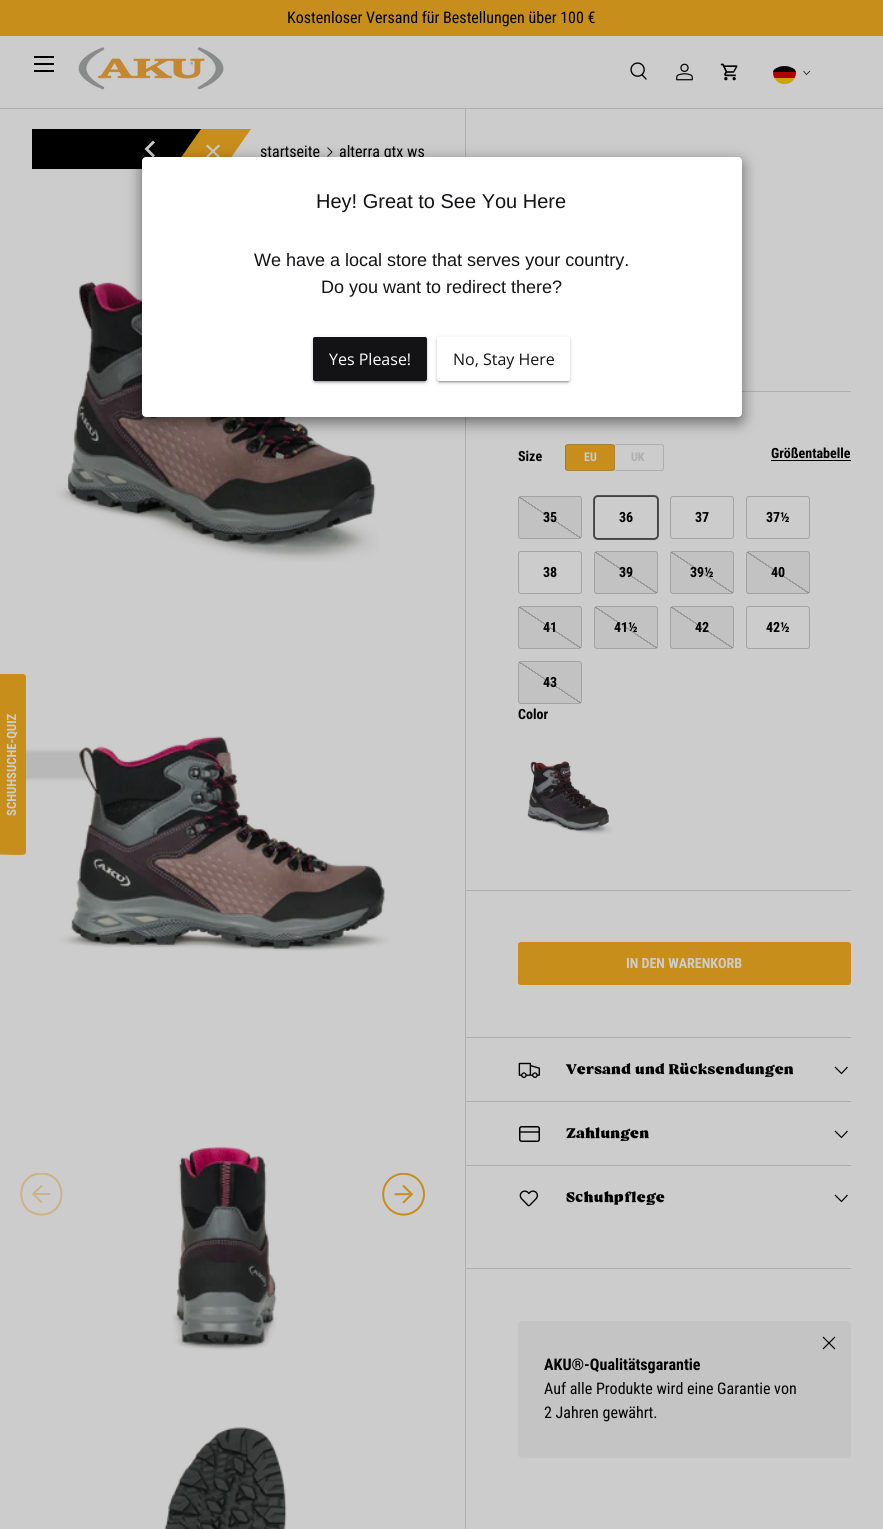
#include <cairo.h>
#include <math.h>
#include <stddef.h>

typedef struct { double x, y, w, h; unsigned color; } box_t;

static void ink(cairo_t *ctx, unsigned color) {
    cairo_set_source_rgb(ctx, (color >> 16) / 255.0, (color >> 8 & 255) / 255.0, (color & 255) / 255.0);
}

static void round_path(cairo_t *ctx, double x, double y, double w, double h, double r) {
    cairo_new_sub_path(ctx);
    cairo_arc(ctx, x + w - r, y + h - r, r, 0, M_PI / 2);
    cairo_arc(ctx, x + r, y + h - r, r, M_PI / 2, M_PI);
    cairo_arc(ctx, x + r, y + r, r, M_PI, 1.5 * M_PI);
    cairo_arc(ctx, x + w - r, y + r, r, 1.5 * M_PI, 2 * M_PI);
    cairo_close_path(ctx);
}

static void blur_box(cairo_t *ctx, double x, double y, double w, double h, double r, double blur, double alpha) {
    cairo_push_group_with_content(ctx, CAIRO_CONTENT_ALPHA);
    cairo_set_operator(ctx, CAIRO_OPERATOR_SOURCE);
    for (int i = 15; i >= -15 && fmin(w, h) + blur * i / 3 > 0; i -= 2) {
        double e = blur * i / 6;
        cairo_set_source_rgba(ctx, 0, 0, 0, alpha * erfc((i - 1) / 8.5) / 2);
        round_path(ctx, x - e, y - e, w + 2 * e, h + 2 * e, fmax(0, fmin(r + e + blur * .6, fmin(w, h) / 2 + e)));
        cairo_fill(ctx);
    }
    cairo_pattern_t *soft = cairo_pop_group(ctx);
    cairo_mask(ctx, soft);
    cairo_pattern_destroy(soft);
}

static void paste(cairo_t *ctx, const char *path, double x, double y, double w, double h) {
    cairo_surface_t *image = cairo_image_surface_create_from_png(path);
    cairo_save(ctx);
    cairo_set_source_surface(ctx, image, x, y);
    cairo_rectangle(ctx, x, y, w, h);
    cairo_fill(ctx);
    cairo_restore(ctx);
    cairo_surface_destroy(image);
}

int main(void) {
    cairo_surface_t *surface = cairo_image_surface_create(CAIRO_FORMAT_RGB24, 883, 1529);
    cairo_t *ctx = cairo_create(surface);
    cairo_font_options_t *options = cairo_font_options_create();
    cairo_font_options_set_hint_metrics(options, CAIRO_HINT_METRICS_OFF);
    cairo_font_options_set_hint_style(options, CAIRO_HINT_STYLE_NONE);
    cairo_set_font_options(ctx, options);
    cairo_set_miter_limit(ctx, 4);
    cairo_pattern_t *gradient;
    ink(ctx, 0xCCCCCC);
    cairo_paint(ctx);
    ink(ctx, 0xC78E1B);
    cairo_rectangle(ctx, 0, 0, 883, 36);
    cairo_fill(ctx);
    cairo_select_font_face(ctx, "Roboto Condensed", CAIRO_FONT_SLANT_NORMAL, CAIRO_FONT_WEIGHT_NORMAL);
    cairo_set_font_size(ctx, 16);
    ink(ctx, 0x000000);
    cairo_move_to(ctx, 287, 23);
    cairo_show_text(ctx, "Kostenloser Versand für Bestellungen über 100 €");
    {
        static const box_t items[] = {
            {465, 107, 1, 1422, 0xAEAEAE},
            {465, 107, 1, 1, 0xCCCCCC},
            {0, 108, 883, 1, 0xAEAEAE},
            {34, 56, 20, 2, 0x000000},
            {34, 70, 20, 2, 0x000000},
            {34, 63, 20, 2, 0x000000},
        };
        for (size_t i = 0; i < sizeof items / sizeof *items; i++) {
            ink(ctx, items[i].color);
            cairo_rectangle(ctx, items[i].x, items[i].y, items[i].w, items[i].h);
            cairo_fill(ctx);
        }
    }
    paste(ctx, "media/1.png", 78, 47, 146, 43);
    paste(ctx, "media/2.png", 630, 62, 17, 18);
    paste(ctx, "media/3.png", 676, 63, 17, 18);
    paste(ctx, "media/4.png", 720, 63, 18, 18);
    paste(ctx, "media/5.png", 773, 66, 23, 18);
    cairo_new_path(ctx);
    cairo_move_to(ctx, 810, 71);
    cairo_line_to(ctx, 806.5, 74.5);
    cairo_line_to(ctx, 803.5, 71);
    cairo_set_line_width(ctx, 0.7);
    cairo_stroke(ctx);
    cairo_rectangle(ctx, 32, 129, 169, 40);
    cairo_fill(ctx);
    ink(ctx, 0xCCCCCC);
    cairo_new_path(ctx);
    cairo_move_to(ctx, 155, 155.5);
    cairo_line_to(ctx, 148.5, 149);
    cairo_line_to(ctx, 155, 142.5);
    cairo_line_to(ctx, 153, 140.5);
    cairo_line_to(ctx, 144.5, 149);
    cairo_line_to(ctx, 153, 157.5);
    cairo_close_path(ctx);
    cairo_fill(ctx);
    ink(ctx, 0xC78E1B);
    cairo_new_path(ctx);
    cairo_move_to(ctx, 201, 129);
    cairo_line_to(ctx, 251, 129);
    cairo_line_to(ctx, 223, 169);
    cairo_line_to(ctx, 173, 169);
    cairo_close_path(ctx);
    cairo_fill(ctx);
    ink(ctx, 0xCCCCCC);
    cairo_new_path(ctx);
    cairo_move_to(ctx, 206, 146);
    cairo_line_to(ctx, 207.5, 144.5);
    cairo_line_to(ctx, 220, 156.5);
    cairo_line_to(ctx, 218.5, 158);
    cairo_close_path(ctx);
    cairo_fill(ctx);
    cairo_new_path(ctx);
    cairo_move_to(ctx, 218.5, 144.5);
    cairo_line_to(ctx, 220, 146);
    cairo_line_to(ctx, 207.5, 158);
    cairo_line_to(ctx, 206, 156.5);
    cairo_close_path(ctx);
    cairo_fill(ctx);
    ink(ctx, 0x000000);
    cairo_move_to(ctx, 260, 157);
    cairo_show_text(ctx, "startseite");
    cairo_new_path(ctx);
    cairo_move_to(ctx, 327.5, 147.5);
    cairo_line_to(ctx, 332, 152);
    cairo_line_to(ctx, 327.5, 156.5);
    cairo_set_line_width(ctx, 0.9);
    cairo_stroke(ctx);
    cairo_move_to(ctx, 339, 157);
    cairo_show_text(ctx, "alterra gtx ws");
    paste(ctx, "media/6.png", 56, 281, 323, 281);
    paste(ctx, "media/7.png", 59, 736, 330, 215);
    paste(ctx, "media/8.png", 171, 1147, 106, 203);
    paste(ctx, "media/9.png", 164, 1427, 123, 102);
    cairo_save(ctx);
    cairo_rectangle(ctx, 20, 1173, 43, 43);
    cairo_clip(ctx);
    cairo_new_path(ctx);
    cairo_move_to(ctx, 41.5, 1214.5);
    cairo_curve_to(ctx, 68, 1214.5, 68, 1173.5, 41.5, 1173.5);
    cairo_curve_to(ctx, 14.5, 1173.5, 14.5, 1214.5, 41.5, 1214.5);
    cairo_close_path(ctx);
    ink(ctx, 0xCAB386);
    cairo_set_line_width(ctx, 2);
    cairo_set_line_cap(ctx, CAIRO_LINE_CAP_ROUND);
    cairo_set_line_join(ctx, CAIRO_LINE_JOIN_ROUND);
    cairo_stroke(ctx);
    cairo_restore(ctx);
    cairo_new_path(ctx);
    cairo_move_to(ctx, 41.5, 1186);
    cairo_line_to(ctx, 33, 1194);
    cairo_line_to(ctx, 41.5, 1202);
    cairo_move_to(ctx, 49.5, 1194);
    cairo_line_to(ctx, 33, 1194);
    ink(ctx, 0xCAB386);
    cairo_set_line_width(ctx, 2);
    cairo_set_line_cap(ctx, CAIRO_LINE_CAP_ROUND);
    cairo_set_line_join(ctx, CAIRO_LINE_JOIN_ROUND);
    cairo_stroke(ctx);
    paste(ctx, "media/10.png", 382, 1173, 43, 43);
    ink(ctx, 0xAEAEAE);
    cairo_rectangle(ctx, 742, 391, 109, 1);
    cairo_fill(ctx);
    cairo_select_font_face(ctx, "Roboto Condensed", CAIRO_FONT_SLANT_NORMAL, CAIRO_FONT_WEIGHT_BOLD);
    cairo_set_font_size(ctx, 14);
    ink(ctx, 0x000000);
    cairo_move_to(ctx, 518, 461);
    cairo_show_text(ctx, "Size");
    ink(ctx, 0xC89B42);
    round_path(ctx, 565, 444, 50, 27, 3);
    cairo_fill(ctx);
    cairo_save(ctx);
    round_path(ctx, 565, 444, 50, 27, 3);
    cairo_clip(ctx);
    gradient = cairo_pattern_create_linear(471, 440, 613, 475);
    cairo_pattern_add_color_stop_rgba(gradient, 0.6, 0.784, 0.608, 0.259, 1);
    cairo_pattern_add_color_stop_rgba(gradient, 0.6, 0.78, 0.557, 0.106, 1);
    cairo_pattern_add_color_stop_rgba(gradient, 1, 0.78, 0.557, 0.106, 1);
    cairo_set_source(ctx, gradient);
    cairo_pattern_destroy(gradient);
    cairo_rectangle(ctx, 565, 445, 49, 25);
    cairo_fill(ctx);
    cairo_restore(ctx);
    round_path(ctx, 565.5, 444.5, 49, 26, 2.5);
    cairo_set_source_rgba(ctx, 0, 0, 0, 0.15);
    cairo_set_line_width(ctx, 1);
    cairo_set_line_cap(ctx, CAIRO_LINE_CAP_BUTT);
    cairo_set_line_join(ctx, CAIRO_LINE_JOIN_MITER);
    cairo_stroke(ctx);
    cairo_set_font_size(ctx, 12);
    ink(ctx, 0xCCCCCC);
    cairo_move_to(ctx, 584, 461);
    cairo_show_text(ctx, "EU");
    cairo_set_source_rgba(ctx, 0, 0, 0, 0.15);
    cairo_set_fill_rule(ctx, CAIRO_FILL_RULE_EVEN_ODD);
    cairo_new_path(ctx);
    cairo_move_to(ctx, 617, 444);
    cairo_line_to(ctx, 661, 444);
    cairo_curve_to(ctx, 663, 444, 664, 445, 664, 447);
    cairo_line_to(ctx, 664, 468);
    cairo_curve_to(ctx, 664, 470, 663, 471, 661, 471);
    cairo_line_to(ctx, 617, 471);
    cairo_curve_to(ctx, 615, 471, 614, 470, 614, 468);
    cairo_line_to(ctx, 614, 447);
    cairo_curve_to(ctx, 614, 445, 615, 444, 617, 444);
    cairo_close_path(ctx);
    cairo_move_to(ctx, 617, 445);
    cairo_line_to(ctx, 661, 445);
    cairo_curve_to(ctx, 662, 445, 663, 446, 663, 447);
    cairo_line_to(ctx, 663, 468);
    cairo_curve_to(ctx, 663, 469, 662, 470, 661, 470);
    cairo_line_to(ctx, 617, 470);
    cairo_curve_to(ctx, 615, 470, 614, 469, 614, 468);
    cairo_line_to(ctx, 614, 447);
    cairo_curve_to(ctx, 614, 446, 615, 445, 617, 445);
    cairo_close_path(ctx);
    cairo_fill(ctx);
    ink(ctx, 0xAEAEAE);
    cairo_move_to(ctx, 631, 461);
    cairo_show_text(ctx, "UK");
    cairo_set_font_size(ctx, 14);
    ink(ctx, 0x000000);
    cairo_move_to(ctx, 771, 458);
    cairo_show_text(ctx, "Größentabelle");
    cairo_rectangle(ctx, 771, 460, 80, 1);
    cairo_fill(ctx);
    gradient = cairo_pattern_create_linear(569, 489, 531, 546);
    cairo_pattern_add_color_stop_rgba(gradient, 0.49, 0.8, 0.8, 0.8, 1);
    cairo_pattern_add_color_stop_rgba(gradient, 0.49, 0.639, 0.639, 0.639, 1);
    cairo_pattern_add_color_stop_rgba(gradient, 0.51, 0.639, 0.639, 0.639, 1);
    cairo_pattern_add_color_stop_rgba(gradient, 0.51, 0.8, 0.8, 0.8, 1);
    cairo_set_source(ctx, gradient);
    cairo_pattern_destroy(gradient);
    cairo_rectangle(ctx, 519, 497, 62, 41);
    cairo_fill(ctx);
    round_path(ctx, 518.5, 496.5, 63, 42, 2.5);
    cairo_set_source_rgba(ctx, 0, 0, 0, 0.2);
    cairo_stroke(ctx);
    cairo_set_source_rgba(ctx, 0, 0, 0, 0.05);
    cairo_rectangle(ctx, 519, 497, 62, 41);
    cairo_fill(ctx);
    ink(ctx, 0x000000);
    cairo_move_to(ctx, 543, 522);
    cairo_show_text(ctx, "35");
    round_path(ctx, 594.5, 496.5, 63, 42, 2.5);
    ink(ctx, 0xA3A3A3);
    cairo_stroke(ctx);
    round_path(ctx, 594, 496, 64, 43, 4);
    cairo_set_source_rgba(ctx, 0, 0, 0, 0.6);
    cairo_set_line_width(ctx, 2);
    cairo_stroke(ctx);
    ink(ctx, 0x000000);
    cairo_move_to(ctx, 619, 522);
    cairo_show_text(ctx, "36");
    round_path(ctx, 670.5, 496.5, 63, 42, 2.5);
    ink(ctx, 0xA3A3A3);
    cairo_set_line_width(ctx, 1);
    cairo_stroke(ctx);
    ink(ctx, 0x000000);
    cairo_move_to(ctx, 695, 522);
    cairo_show_text(ctx, "37");
    round_path(ctx, 746.5, 496.5, 63, 42, 2.5);
    ink(ctx, 0xA3A3A3);
    cairo_stroke(ctx);
    ink(ctx, 0x000000);
    cairo_move_to(ctx, 766, 522);
    cairo_show_text(ctx, "37½");
    round_path(ctx, 518.5, 551.5, 63, 42, 2.5);
    ink(ctx, 0xA3A3A3);
    cairo_stroke(ctx);
    ink(ctx, 0x000000);
    cairo_move_to(ctx, 543, 577);
    cairo_show_text(ctx, "38");
    gradient = cairo_pattern_create_linear(645, 544, 607, 601);
    cairo_pattern_add_color_stop_rgba(gradient, 0.49, 0.8, 0.8, 0.8, 1);
    cairo_pattern_add_color_stop_rgba(gradient, 0.49, 0.639, 0.639, 0.639, 1);
    cairo_pattern_add_color_stop_rgba(gradient, 0.51, 0.639, 0.639, 0.639, 1);
    cairo_pattern_add_color_stop_rgba(gradient, 0.51, 0.8, 0.8, 0.8, 1);
    cairo_set_source(ctx, gradient);
    cairo_pattern_destroy(gradient);
    cairo_rectangle(ctx, 595, 552, 62, 41);
    cairo_fill(ctx);
    round_path(ctx, 594.5, 551.5, 63, 42, 2.5);
    cairo_set_source_rgba(ctx, 0, 0, 0, 0.2);
    cairo_stroke(ctx);
    cairo_set_source_rgba(ctx, 0, 0, 0, 0.05);
    cairo_rectangle(ctx, 595, 552, 62, 41);
    cairo_fill(ctx);
    ink(ctx, 0x000000);
    cairo_move_to(ctx, 619, 577);
    cairo_show_text(ctx, "39");
    gradient = cairo_pattern_create_linear(721, 544, 683, 601);
    cairo_pattern_add_color_stop_rgba(gradient, 0.49, 0.8, 0.8, 0.8, 1);
    cairo_pattern_add_color_stop_rgba(gradient, 0.49, 0.639, 0.639, 0.639, 1);
    cairo_pattern_add_color_stop_rgba(gradient, 0.51, 0.639, 0.639, 0.639, 1);
    cairo_pattern_add_color_stop_rgba(gradient, 0.51, 0.8, 0.8, 0.8, 1);
    cairo_set_source(ctx, gradient);
    cairo_pattern_destroy(gradient);
    cairo_rectangle(ctx, 671, 552, 62, 41);
    cairo_fill(ctx);
    round_path(ctx, 670.5, 551.5, 63, 42, 2.5);
    cairo_set_source_rgba(ctx, 0, 0, 0, 0.2);
    cairo_stroke(ctx);
    cairo_set_source_rgba(ctx, 0, 0, 0, 0.05);
    cairo_rectangle(ctx, 671, 552, 62, 41);
    cairo_fill(ctx);
    ink(ctx, 0x000000);
    cairo_move_to(ctx, 690, 577);
    cairo_show_text(ctx, "39½");
    gradient = cairo_pattern_create_linear(797, 544, 759, 601);
    cairo_pattern_add_color_stop_rgba(gradient, 0.49, 0.8, 0.8, 0.8, 1);
    cairo_pattern_add_color_stop_rgba(gradient, 0.49, 0.639, 0.639, 0.639, 1);
    cairo_pattern_add_color_stop_rgba(gradient, 0.51, 0.639, 0.639, 0.639, 1);
    cairo_pattern_add_color_stop_rgba(gradient, 0.51, 0.8, 0.8, 0.8, 1);
    cairo_set_source(ctx, gradient);
    cairo_pattern_destroy(gradient);
    cairo_rectangle(ctx, 747, 552, 62, 41);
    cairo_fill(ctx);
    round_path(ctx, 746.5, 551.5, 63, 42, 2.5);
    cairo_set_source_rgba(ctx, 0, 0, 0, 0.2);
    cairo_stroke(ctx);
    cairo_set_source_rgba(ctx, 0, 0, 0, 0.05);
    cairo_rectangle(ctx, 747, 552, 62, 41);
    cairo_fill(ctx);
    ink(ctx, 0x000000);
    cairo_move_to(ctx, 771, 577);
    cairo_show_text(ctx, "40");
    gradient = cairo_pattern_create_linear(569, 599, 531, 656);
    cairo_pattern_add_color_stop_rgba(gradient, 0.49, 0.8, 0.8, 0.8, 1);
    cairo_pattern_add_color_stop_rgba(gradient, 0.49, 0.639, 0.639, 0.639, 1);
    cairo_pattern_add_color_stop_rgba(gradient, 0.51, 0.639, 0.639, 0.639, 1);
    cairo_pattern_add_color_stop_rgba(gradient, 0.51, 0.8, 0.8, 0.8, 1);
    cairo_set_source(ctx, gradient);
    cairo_pattern_destroy(gradient);
    cairo_rectangle(ctx, 519, 607, 62, 41);
    cairo_fill(ctx);
    round_path(ctx, 518.5, 606.5, 63, 42, 2.5);
    cairo_set_source_rgba(ctx, 0, 0, 0, 0.2);
    cairo_stroke(ctx);
    cairo_set_source_rgba(ctx, 0, 0, 0, 0.05);
    cairo_rectangle(ctx, 519, 607, 62, 41);
    cairo_fill(ctx);
    ink(ctx, 0x000000);
    cairo_move_to(ctx, 543, 632);
    cairo_show_text(ctx, "41");
    gradient = cairo_pattern_create_linear(645, 599, 607, 656);
    cairo_pattern_add_color_stop_rgba(gradient, 0.49, 0.8, 0.8, 0.8, 1);
    cairo_pattern_add_color_stop_rgba(gradient, 0.49, 0.639, 0.639, 0.639, 1);
    cairo_pattern_add_color_stop_rgba(gradient, 0.51, 0.639, 0.639, 0.639, 1);
    cairo_pattern_add_color_stop_rgba(gradient, 0.51, 0.8, 0.8, 0.8, 1);
    cairo_set_source(ctx, gradient);
    cairo_pattern_destroy(gradient);
    cairo_rectangle(ctx, 595, 607, 62, 41);
    cairo_fill(ctx);
    round_path(ctx, 594.5, 606.5, 63, 42, 2.5);
    cairo_set_source_rgba(ctx, 0, 0, 0, 0.2);
    cairo_stroke(ctx);
    cairo_set_source_rgba(ctx, 0, 0, 0, 0.05);
    cairo_rectangle(ctx, 595, 607, 62, 41);
    cairo_fill(ctx);
    ink(ctx, 0x000000);
    cairo_move_to(ctx, 614, 632);
    cairo_show_text(ctx, "41½");
    gradient = cairo_pattern_create_linear(721, 599, 683, 656);
    cairo_pattern_add_color_stop_rgba(gradient, 0.49, 0.8, 0.8, 0.8, 1);
    cairo_pattern_add_color_stop_rgba(gradient, 0.49, 0.639, 0.639, 0.639, 1);
    cairo_pattern_add_color_stop_rgba(gradient, 0.51, 0.639, 0.639, 0.639, 1);
    cairo_pattern_add_color_stop_rgba(gradient, 0.51, 0.8, 0.8, 0.8, 1);
    cairo_set_source(ctx, gradient);
    cairo_pattern_destroy(gradient);
    cairo_rectangle(ctx, 671, 607, 62, 41);
    cairo_fill(ctx);
    round_path(ctx, 670.5, 606.5, 63, 42, 2.5);
    cairo_set_source_rgba(ctx, 0, 0, 0, 0.2);
    cairo_stroke(ctx);
    cairo_set_source_rgba(ctx, 0, 0, 0, 0.05);
    cairo_rectangle(ctx, 671, 607, 62, 41);
    cairo_fill(ctx);
    ink(ctx, 0x000000);
    cairo_move_to(ctx, 695, 632);
    cairo_show_text(ctx, "42");
    round_path(ctx, 746.5, 606.5, 63, 42, 2.5);
    ink(ctx, 0xA3A3A3);
    cairo_stroke(ctx);
    ink(ctx, 0x000000);
    cairo_move_to(ctx, 766, 632);
    cairo_show_text(ctx, "42½");
    gradient = cairo_pattern_create_linear(569, 654, 531, 711);
    cairo_pattern_add_color_stop_rgba(gradient, 0.49, 0.8, 0.8, 0.8, 1);
    cairo_pattern_add_color_stop_rgba(gradient, 0.49, 0.639, 0.639, 0.639, 1);
    cairo_pattern_add_color_stop_rgba(gradient, 0.51, 0.639, 0.639, 0.639, 1);
    cairo_pattern_add_color_stop_rgba(gradient, 0.51, 0.8, 0.8, 0.8, 1);
    cairo_set_source(ctx, gradient);
    cairo_pattern_destroy(gradient);
    cairo_rectangle(ctx, 519, 662, 62, 41);
    cairo_fill(ctx);
    round_path(ctx, 518.5, 661.5, 63, 42, 2.5);
    cairo_set_source_rgba(ctx, 0, 0, 0, 0.2);
    cairo_stroke(ctx);
    cairo_set_source_rgba(ctx, 0, 0, 0, 0.05);
    cairo_rectangle(ctx, 519, 662, 62, 41);
    cairo_fill(ctx);
    ink(ctx, 0x000000);
    cairo_move_to(ctx, 543, 687);
    cairo_show_text(ctx, "43");
    cairo_move_to(ctx, 518, 719);
    cairo_show_text(ctx, "Color");
    paste(ctx, "media/11.png", 527, 761, 86, 74);
    ink(ctx, 0xAEAEAE);
    cairo_rectangle(ctx, 466, 890, 385, 1);
    cairo_fill(ctx);
    cairo_save(ctx);
    cairo_set_fill_rule(ctx, CAIRO_FILL_RULE_WINDING);
    round_path(ctx, 518, 942, 333, 43, 3);
    cairo_clip(ctx);
    gradient = cairo_pattern_create_linear(-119, 846, 826, 1081);
    cairo_pattern_add_color_stop_rgba(gradient, 0.6, 0.784, 0.608, 0.259, 1);
    cairo_pattern_add_color_stop_rgba(gradient, 0.6, 0.78, 0.557, 0.106, 1);
    cairo_pattern_add_color_stop_rgba(gradient, 1, 0.78, 0.557, 0.106, 1);
    cairo_set_source(ctx, gradient);
    cairo_pattern_destroy(gradient);
    cairo_rectangle(ctx, 518, 943, 332, 41);
    cairo_fill(ctx);
    cairo_restore(ctx);
    round_path(ctx, 518.5, 942.5, 332, 42, 2.5);
    ink(ctx, 0xC78E1B);
    cairo_stroke(ctx);
    ink(ctx, 0xCCCCCC);
    cairo_move_to(ctx, 626, 968);
    cairo_show_text(ctx, "IN DEN WARENKORB");
    ink(ctx, 0xAEAEAE);
    cairo_rectangle(ctx, 466, 1037, 385, 1);
    cairo_fill(ctx);
    paste(ctx, "media/12.png", 518, 1062, 22, 16);
    cairo_select_font_face(ctx, "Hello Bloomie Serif", CAIRO_FONT_SLANT_NORMAL, CAIRO_FONT_WEIGHT_NORMAL);
    cairo_set_font_size(ctx, 16);
    ink(ctx, 0x000000);
    cairo_move_to(ctx, 566, 1074);
    cairo_show_text(ctx, "Versand und Rücksendungen");
    cairo_new_path(ctx);
    cairo_move_to(ctx, 847.5, 1067);
    cairo_line_to(ctx, 841.5, 1073.5);
    cairo_line_to(ctx, 835, 1067);
    cairo_set_line_width(ctx, 1.2);
    cairo_stroke(ctx);
    ink(ctx, 0xAEAEAE);
    cairo_rectangle(ctx, 466, 1101, 385, 1);
    cairo_fill(ctx);
    round_path(ctx, 519.75, 1126.75, 19.5, 14.5, 1.75);
    ink(ctx, 0x000000);
    cairo_set_line_width(ctx, 1.5);
    cairo_stroke(ctx);
    cairo_new_path(ctx);
    cairo_move_to(ctx, 519.5, 1132);
    cairo_line_to(ctx, 539, 1132);
    cairo_set_line_width(ctx, 1.4);
    cairo_stroke(ctx);
    cairo_move_to(ctx, 566, 1138);
    cairo_show_text(ctx, "Zahlungen");
    cairo_new_path(ctx);
    cairo_move_to(ctx, 847.5, 1131);
    cairo_line_to(ctx, 841.5, 1137.5);
    cairo_line_to(ctx, 835, 1131);
    cairo_set_line_width(ctx, 1.2);
    cairo_stroke(ctx);
    ink(ctx, 0xAEAEAE);
    cairo_rectangle(ctx, 466, 1165, 385, 1);
    cairo_fill(ctx);
    paste(ctx, "media/13.png", 519, 1190, 19, 17);
    ink(ctx, 0x000000);
    cairo_move_to(ctx, 566, 1202);
    cairo_show_text(ctx, "Schuhpflege");
    cairo_new_path(ctx);
    cairo_move_to(ctx, 847.5, 1195);
    cairo_line_to(ctx, 841.5, 1201.5);
    cairo_line_to(ctx, 835, 1195);
    cairo_stroke(ctx);
    ink(ctx, 0xAEAEAE);
    cairo_rectangle(ctx, 466, 1268, 385, 1);
    cairo_fill(ctx);
    ink(ctx, 0xC4C4C4);
    round_path(ctx, 518, 1321, 333, 137, 4);
    cairo_fill(ctx);
    cairo_new_path(ctx);
    cairo_move_to(ctx, 823, 1349);
    cairo_line_to(ctx, 835, 1337);
    cairo_move_to(ctx, 823, 1337);
    cairo_line_to(ctx, 835, 1349);
    ink(ctx, 0x000000);
    cairo_set_line_join(ctx, CAIRO_LINE_JOIN_ROUND);
    cairo_stroke(ctx);
    cairo_select_font_face(ctx, "Roboto Condensed", CAIRO_FONT_SLANT_NORMAL, CAIRO_FONT_WEIGHT_BOLD);
    cairo_move_to(ctx, 544, 1370);
    cairo_show_text(ctx, "AKU®-Qualitätsgarantie");
    cairo_select_font_face(ctx, "Roboto Condensed", CAIRO_FONT_SLANT_NORMAL, CAIRO_FONT_WEIGHT_NORMAL);
    cairo_move_to(ctx, 544, 1394);
    cairo_show_text(ctx, "Auf alle Produkte wird eine Garantie von");
    cairo_move_to(ctx, 544, 1418);
    cairo_show_text(ctx, "2 Jahren gewährt.");
    ink(ctx, 0x000000);
    blur_box(ctx, 142, 162, 600, 260, 4, 7.5, 0.5);
    ink(ctx, 0xFFFFFF);
    round_path(ctx, 142, 157, 600, 260, 4);
    cairo_fill(ctx);
    cairo_select_font_face(ctx, "Liberation Sans", CAIRO_FONT_SLANT_NORMAL, CAIRO_FONT_WEIGHT_NORMAL);
    cairo_set_font_size(ctx, 20);
    ink(ctx, 0x131316);
    cairo_move_to(ctx, 316, 208);
    cairo_show_text(ctx, "Hey! Great to See You Here");
    cairo_set_font_size(ctx, 18);
    cairo_move_to(ctx, 254, 266);
    cairo_show_text(ctx, "We have a local store that serves your country.");
    cairo_move_to(ctx, 321, 293);
    cairo_show_text(ctx, "Do you want to redirect there?");
    ink(ctx, 0x000000);
    blur_box(ctx, 313, 338, 114, 44, 2, 2.5, 0.12);
    blur_box(ctx, 315, 342, 110, 40, 0, 0.5, 0.2);
    blur_box(ctx, 313, 339, 114, 44, 2, 1, 0.14);
    ink(ctx, 0x131316);
    round_path(ctx, 313.5, 337.5, 113, 43, 1.5);
    cairo_fill_preserve(ctx);
    cairo_set_line_width(ctx, 1);
    cairo_set_line_join(ctx, CAIRO_LINE_JOIN_MITER);
    cairo_stroke(ctx);
    cairo_select_font_face(ctx, "Open Sans", CAIRO_FONT_SLANT_NORMAL, CAIRO_FONT_WEIGHT_NORMAL);
    cairo_set_font_size(ctx, 16);
    ink(ctx, 0xFFFFFF);
    cairo_move_to(ctx, 329, 365);
    cairo_show_text(ctx, "Yes Please!");
    ink(ctx, 0x000000);
    blur_box(ctx, 437, 338, 133, 44, 2, 2.5, 0.12);
    blur_box(ctx, 439, 342, 129, 40, 0, 0.5, 0.2);
    blur_box(ctx, 437, 339, 133, 44, 2, 1, 0.14);
    ink(ctx, 0xFFFFFF);
    round_path(ctx, 437.5, 337.5, 132, 43, 1.5);
    cairo_fill_preserve(ctx);
    cairo_stroke(ctx);
    ink(ctx, 0x131316);
    cairo_move_to(ctx, 453, 365);
    cairo_show_text(ctx, "No, Stay Here");
    ink(ctx, 0x000000);
    blur_box(ctx, -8, 751, 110, 28, 3, 1.5, 0.1);
    ink(ctx, 0xC78E1B);
    cairo_set_fill_rule(ctx, CAIRO_FILL_RULE_WINDING);
    cairo_new_path(ctx);
    cairo_move_to(ctx, -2, 854);
    cairo_line_to(ctx, -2, 674);
    cairo_line_to(ctx, 23, 674);
    cairo_curve_to(ctx, 25, 674, 26, 676, 26, 678);
    cairo_line_to(ctx, 26, 852);
    cairo_curve_to(ctx, 26, 853, 25, 854, 23, 854);
    cairo_close_path(ctx);
    cairo_fill(ctx);
    gradient = cairo_pattern_create_linear(-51, 1197, 75, 688);
    cairo_pattern_add_color_stop_rgba(gradient, 0.6, 0.784, 0.608, 0.259, 1);
    cairo_pattern_add_color_stop_rgba(gradient, 0.6, 0.78, 0.557, 0.106, 1);
    cairo_pattern_add_color_stop_rgba(gradient, 1, 0.78, 0.557, 0.106, 1);
    cairo_set_source(ctx, gradient);
    cairo_pattern_destroy(gradient);
    cairo_new_path(ctx);
    cairo_move_to(ctx, -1, 676);
    cairo_line_to(ctx, 25, 676);
    cairo_line_to(ctx, 25, 854);
    cairo_curve_to(ctx, 23, 856, 3, 854, -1, 854);
    cairo_close_path(ctx);
    cairo_fill(ctx);
    cairo_new_path(ctx);
    cairo_move_to(ctx, -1.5, 854);
    cairo_line_to(ctx, -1.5, 675);
    cairo_line_to(ctx, 23, 675);
    cairo_curve_to(ctx, 24.5, 675, 25.5, 676, 25.5, 677.5);
    cairo_line_to(ctx, 25.5, 851.5);
    cairo_curve_to(ctx, 25.5, 853, 24.5, 854, 23, 854);
    cairo_close_path(ctx);
    ink(ctx, 0xC78E1B);
    cairo_stroke(ctx);
    cairo_select_font_face(ctx, "Roboto Condensed", CAIRO_FONT_SLANT_NORMAL, CAIRO_FONT_WEIGHT_BOLD);
    cairo_set_font_size(ctx, 12.75);
    ink(ctx, 0xCCCCCC);
    cairo_save(ctx);
    cairo_translate(ctx, 16, 816);
    cairo_rotate(ctx, -90 * M_PI / 180);
    cairo_move_to(ctx, 0, 0);
    cairo_show_text(ctx, "SCHUHSUCHE-QUIZ");
    cairo_restore(ctx);
    cairo_surface_write_to_png(surface, "image.png");
    cairo_font_options_destroy(options);
    cairo_destroy(ctx);
    cairo_surface_destroy(surface);
    return 0;
}
